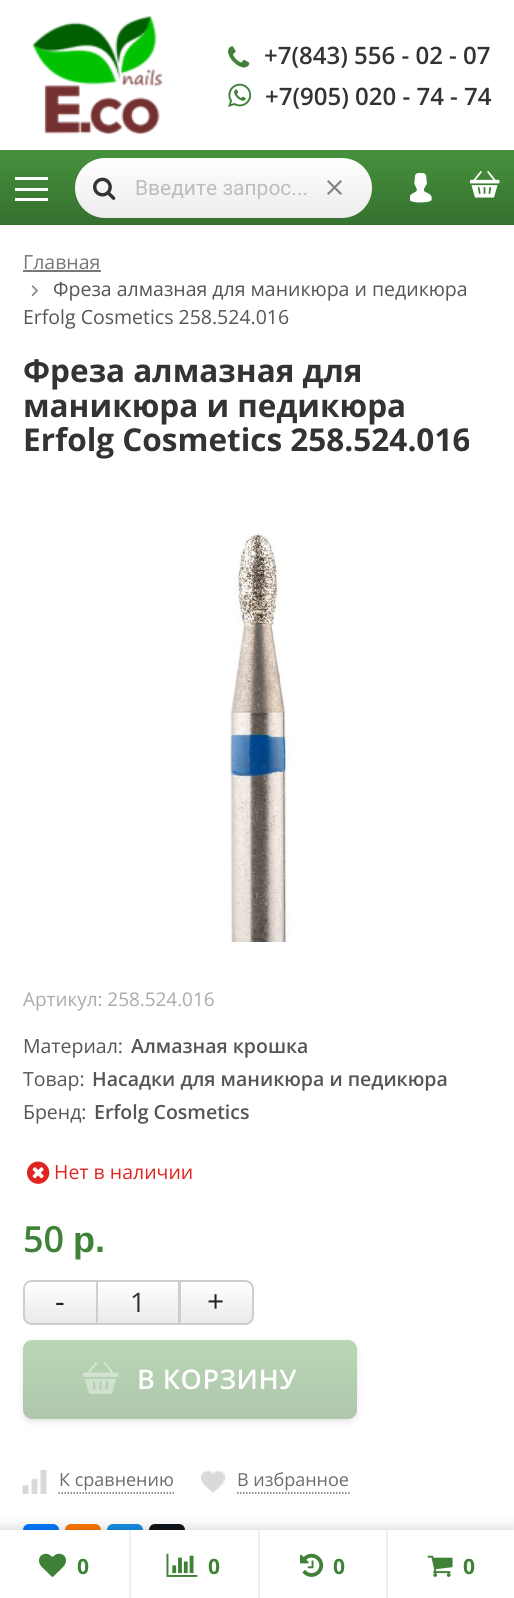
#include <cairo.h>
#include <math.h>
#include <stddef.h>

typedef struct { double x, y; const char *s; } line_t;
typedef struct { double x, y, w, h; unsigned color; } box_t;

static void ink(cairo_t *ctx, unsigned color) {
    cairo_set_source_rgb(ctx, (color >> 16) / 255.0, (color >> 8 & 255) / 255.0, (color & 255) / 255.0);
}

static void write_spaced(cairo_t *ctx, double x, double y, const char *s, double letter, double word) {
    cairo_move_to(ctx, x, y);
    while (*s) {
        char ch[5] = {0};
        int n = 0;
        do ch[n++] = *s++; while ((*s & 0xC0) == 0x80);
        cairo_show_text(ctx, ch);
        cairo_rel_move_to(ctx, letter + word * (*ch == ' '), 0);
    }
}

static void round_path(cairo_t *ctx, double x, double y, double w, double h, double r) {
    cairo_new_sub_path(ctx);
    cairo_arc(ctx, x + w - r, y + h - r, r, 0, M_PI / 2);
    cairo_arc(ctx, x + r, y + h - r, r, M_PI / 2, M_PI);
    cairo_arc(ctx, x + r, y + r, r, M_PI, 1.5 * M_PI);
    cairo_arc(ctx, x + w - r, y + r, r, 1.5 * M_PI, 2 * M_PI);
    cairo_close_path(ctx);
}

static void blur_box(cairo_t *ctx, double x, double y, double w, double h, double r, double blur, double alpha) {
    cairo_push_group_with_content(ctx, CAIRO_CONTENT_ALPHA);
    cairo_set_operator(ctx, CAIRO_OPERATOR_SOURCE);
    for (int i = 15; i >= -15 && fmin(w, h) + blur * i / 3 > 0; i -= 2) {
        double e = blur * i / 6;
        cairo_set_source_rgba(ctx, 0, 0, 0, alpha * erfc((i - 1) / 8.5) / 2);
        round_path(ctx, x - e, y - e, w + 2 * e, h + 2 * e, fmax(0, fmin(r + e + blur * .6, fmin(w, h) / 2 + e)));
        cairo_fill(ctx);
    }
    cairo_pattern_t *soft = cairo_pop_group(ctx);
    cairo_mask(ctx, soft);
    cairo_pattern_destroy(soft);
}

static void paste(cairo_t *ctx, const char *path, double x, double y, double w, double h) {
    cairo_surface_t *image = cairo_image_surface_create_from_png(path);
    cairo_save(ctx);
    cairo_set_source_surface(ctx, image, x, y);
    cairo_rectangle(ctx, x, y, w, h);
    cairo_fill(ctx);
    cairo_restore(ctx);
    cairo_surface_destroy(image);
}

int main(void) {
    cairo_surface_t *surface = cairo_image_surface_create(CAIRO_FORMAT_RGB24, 514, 1598);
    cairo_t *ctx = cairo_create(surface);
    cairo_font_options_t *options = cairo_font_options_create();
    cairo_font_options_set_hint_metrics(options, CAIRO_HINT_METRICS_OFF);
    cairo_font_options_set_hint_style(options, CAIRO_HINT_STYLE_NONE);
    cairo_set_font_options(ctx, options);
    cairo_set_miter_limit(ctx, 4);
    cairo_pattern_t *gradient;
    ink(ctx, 0xFFFFFF);
    cairo_paint(ctx);
    paste(ctx, "media/1.png", 32, 16, 131, 118);
    paste(ctx, "media/2.png", 228, 46, 22, 22);
    cairo_select_font_face(ctx, "Open Sans SemiBold", CAIRO_FONT_SLANT_NORMAL, CAIRO_FONT_WEIGHT_NORMAL);
    cairo_set_font_size(ctx, 24);
    ink(ctx, 0x333333);
    cairo_move_to(ctx, 264, 64);
    cairo_show_text(ctx, "+7(843) 556 - 02 - 07");
    paste(ctx, "media/3.png", 228, 83, 24, 24);
    cairo_move_to(ctx, 265, 105);
    cairo_show_text(ctx, "+7(905) 020 - 74 - 74");
    gradient = cairo_pattern_create_linear(257, 150, 257, 225);
    cairo_pattern_add_color_stop_rgba(gradient, 0, 0.275, 0.569, 0.239, 1);
    cairo_pattern_add_color_stop_rgba(gradient, 1, 0.212, 0.439, 0.184, 1);
    cairo_set_source(ctx, gradient);
    cairo_pattern_destroy(gradient);
    cairo_rectangle(ctx, 0, 150, 514, 75);
    cairo_fill(ctx);
    {
        static const box_t items[] = {
            {15, 177, 33, 3, 0xFFFFFF},
            {15, 188, 33, 3, 0xFFFFFF},
            {15, 198, 33, 3, 0xFFFFFF},
        };
        for (size_t i = 0; i < sizeof items / sizeof *items; i++) {
            ink(ctx, items[i].color);
            cairo_rectangle(ctx, items[i].x, items[i].y, items[i].w, items[i].h);
            cairo_fill(ctx);
        }
    }
    gradient = cairo_pattern_create_linear(224, 157, 224, 218);
    cairo_pattern_add_color_stop_rgba(gradient, 0, 1, 1, 1, 1);
    cairo_pattern_add_color_stop_rgba(gradient, 1, 0.925, 0.925, 0.925, 1);
    cairo_set_source(ctx, gradient);
    cairo_pattern_destroy(gradient);
    round_path(ctx, 75, 158, 297, 60, 30);
    cairo_fill(ctx);
    paste(ctx, "media/4.png", 93, 177, 23, 23);
    cairo_select_font_face(ctx, "Roboto", CAIRO_FONT_SLANT_NORMAL, CAIRO_FONT_WEIGHT_NORMAL);
    cairo_set_font_size(ctx, 21);
    ink(ctx, 0xBDBDBD);
    cairo_move_to(ctx, 135, 195);
    cairo_show_text(ctx, "Введите запрос...");
    paste(ctx, "media/5.png", 327, 180, 15, 15);
    paste(ctx, "media/6.png", 410, 173, 22, 30);
    paste(ctx, "media/7.png", 470, 171, 30, 27);
    cairo_select_font_face(ctx, "Open Sans", CAIRO_FONT_SLANT_NORMAL, CAIRO_FONT_WEIGHT_NORMAL);
    cairo_set_font_size(ctx, 19.5);
    ink(ctx, 0x777777);
    cairo_move_to(ctx, 23, 269);
    cairo_show_text(ctx, "Главная");
    cairo_rectangle(ctx, 23, 270, 78, 2);
    cairo_fill(ctx);
    paste(ctx, "media/8.png", 31, 285, 7, 12);
    ink(ctx, 0x555555);
    cairo_move_to(ctx, 53, 296);
    cairo_show_text(ctx, "Фреза алмазная для маникюра и педикюра");
    cairo_move_to(ctx, 23, 324);
    cairo_show_text(ctx, "Erfolg Cosmetics 258.524.016");
    cairo_select_font_face(ctx, "Open Sans", CAIRO_FONT_SLANT_NORMAL, CAIRO_FONT_WEIGHT_BOLD);
    cairo_set_font_size(ctx, 31.5);
    ink(ctx, 0x333333);
    {
        static const line_t items[] = {
            {23, 382, "Фреза алмазная для"},
            {23, 417, "маникюра и педикюра"},
            {23, 451, "Erfolg Cosmetics 258.524.016"},
        };
        for (size_t i = 0; i < sizeof items / sizeof *items; i++) {
            cairo_move_to(ctx, items[i].x, items[i].y);
            cairo_show_text(ctx, items[i].s);
        }
    }
    paste(ctx, "media/9.png", 229, 533, 64, 409);
    cairo_select_font_face(ctx, "Open Sans", CAIRO_FONT_SLANT_NORMAL, CAIRO_FONT_WEIGHT_NORMAL);
    cairo_set_font_size(ctx, 18.9);
    ink(ctx, 0xAAAAAA);
    cairo_move_to(ctx, 23, 1006);
    cairo_show_text(ctx, "Артикул: 258.524.016");
    cairo_set_font_size(ctx, 19.5);
    ink(ctx, 0x555555);
    cairo_move_to(ctx, 23, 1053);
    cairo_show_text(ctx, "Материал:");
    cairo_select_font_face(ctx, "Open Sans SemiBold", CAIRO_FONT_SLANT_NORMAL, CAIRO_FONT_WEIGHT_NORMAL);
    cairo_move_to(ctx, 131, 1053);
    cairo_show_text(ctx, "Алмазная крошка");
    cairo_select_font_face(ctx, "Open Sans", CAIRO_FONT_SLANT_NORMAL, CAIRO_FONT_WEIGHT_NORMAL);
    cairo_move_to(ctx, 23, 1086);
    cairo_show_text(ctx, "Товар:");
    cairo_select_font_face(ctx, "Open Sans SemiBold", CAIRO_FONT_SLANT_NORMAL, CAIRO_FONT_WEIGHT_NORMAL);
    cairo_move_to(ctx, 92, 1086);
    cairo_show_text(ctx, "Насадки для маникюра и педикюра");
    cairo_select_font_face(ctx, "Open Sans", CAIRO_FONT_SLANT_NORMAL, CAIRO_FONT_WEIGHT_NORMAL);
    cairo_move_to(ctx, 23, 1119);
    cairo_show_text(ctx, "Бренд:");
    cairo_select_font_face(ctx, "Open Sans SemiBold", CAIRO_FONT_SLANT_NORMAL, CAIRO_FONT_WEIGHT_NORMAL);
    cairo_move_to(ctx, 94, 1119);
    cairo_show_text(ctx, "Erfolg Cosmetics");
    paste(ctx, "media/10.png", 27, 1161, 23, 23);
    cairo_select_font_face(ctx, "Open Sans", CAIRO_FONT_SLANT_NORMAL, CAIRO_FONT_WEIGHT_NORMAL);
    ink(ctx, 0xE02521);
    cairo_move_to(ctx, 54, 1179);
    cairo_show_text(ctx, "Нет в наличии");
    cairo_select_font_face(ctx, "Open Sans SemiBold", CAIRO_FONT_SLANT_NORMAL, CAIRO_FONT_WEIGHT_NORMAL);
    cairo_set_font_size(ctx, 36);
    ink(ctx, 0x3F8237);
    cairo_move_to(ctx, 23, 1252);
    cairo_show_text(ctx, "50");
    cairo_select_font_face(ctx, "Liberation Sans", CAIRO_FONT_SLANT_NORMAL, CAIRO_FONT_WEIGHT_BOLD);
    cairo_move_to(ctx, 73, 1252);
    cairo_show_text(ctx, "р.");
    cairo_save(ctx);
    cairo_new_path(ctx);
    cairo_move_to(ctx, 32, 1280);
    cairo_line_to(ctx, 98, 1280);
    cairo_line_to(ctx, 98, 1325);
    cairo_line_to(ctx, 32, 1325);
    cairo_curve_to(ctx, 27, 1325, 23, 1321, 23, 1316);
    cairo_line_to(ctx, 23, 1289);
    cairo_curve_to(ctx, 23, 1284, 27, 1280, 32, 1280);
    cairo_close_path(ctx);
    cairo_clip(ctx);
    gradient = cairo_pattern_create_linear(60, 1281, 60, 1323);
    cairo_pattern_add_color_stop_rgba(gradient, 0, 1, 1, 1, 1);
    cairo_pattern_add_color_stop_rgba(gradient, 1, 0.918, 0.918, 0.918, 1);
    cairo_set_source(ctx, gradient);
    cairo_pattern_destroy(gradient);
    cairo_rectangle(ctx, 23, 1281, 73, 42);
    cairo_fill(ctx);
    cairo_restore(ctx);
    cairo_new_path(ctx);
    cairo_move_to(ctx, 32, 1281);
    cairo_line_to(ctx, 97, 1281);
    cairo_line_to(ctx, 97, 1324);
    cairo_line_to(ctx, 32, 1324);
    cairo_curve_to(ctx, 27.5, 1324, 24, 1320.5, 24, 1316);
    cairo_line_to(ctx, 24, 1289);
    cairo_curve_to(ctx, 24, 1284.5, 27.5, 1281, 32, 1281);
    cairo_close_path(ctx);
    ink(ctx, 0xCECECE);
    cairo_stroke(ctx);
    cairo_select_font_face(ctx, "Open Sans", CAIRO_FONT_SLANT_NORMAL, CAIRO_FONT_WEIGHT_NORMAL);
    cairo_set_font_size(ctx, 30);
    ink(ctx, 0x222222);
    cairo_move_to(ctx, 55, 1312);
    cairo_show_text(ctx, "-");
    gradient = cairo_pattern_create_linear(138, 1281, 138, 1323);
    cairo_pattern_add_color_stop_rgba(gradient, 0, 0.918, 0.918, 0.918, 0);
    cairo_pattern_add_color_stop_rgba(gradient, 1, 0.918, 0.918, 0.918, 1);
    cairo_set_source(ctx, gradient);
    cairo_pattern_destroy(gradient);
    cairo_rectangle(ctx, 98, 1287, 80, 36);
    cairo_fill(ctx);
    cairo_save(ctx);
    cairo_new_path(ctx);
    cairo_move_to(ctx, 179, 1280);
    cairo_line_to(ctx, 245, 1280);
    cairo_curve_to(ctx, 250, 1280, 254, 1284, 254, 1289);
    cairo_line_to(ctx, 254, 1316);
    cairo_curve_to(ctx, 254, 1321, 250, 1325, 245, 1325);
    cairo_line_to(ctx, 179, 1325);
    cairo_close_path(ctx);
    cairo_clip(ctx);
    gradient = cairo_pattern_create_linear(216, 1281, 216, 1323);
    cairo_pattern_add_color_stop_rgba(gradient, 0, 1, 1, 1, 1);
    cairo_pattern_add_color_stop_rgba(gradient, 1, 0.918, 0.918, 0.918, 1);
    cairo_set_source(ctx, gradient);
    cairo_pattern_destroy(gradient);
    cairo_rectangle(ctx, 181, 1281, 73, 42);
    cairo_fill(ctx);
    cairo_restore(ctx);
    cairo_new_path(ctx);
    cairo_move_to(ctx, 180, 1281);
    cairo_line_to(ctx, 245, 1281);
    cairo_curve_to(ctx, 249.5, 1281, 253, 1284.5, 253, 1289);
    cairo_line_to(ctx, 253, 1316);
    cairo_curve_to(ctx, 253, 1320.5, 249.5, 1324, 245, 1324);
    cairo_line_to(ctx, 180, 1324);
    cairo_close_path(ctx);
    ink(ctx, 0xCECECE);
    cairo_stroke(ctx);
    cairo_rectangle(ctx, 97, 1281, 82, 43);
    cairo_stroke(ctx);
    cairo_set_font_size(ctx, 27);
    ink(ctx, 0x333333);
    cairo_move_to(ctx, 130, 1312);
    cairo_show_text(ctx, "1");
    cairo_set_font_size(ctx, 30);
    ink(ctx, 0x222222);
    cairo_move_to(ctx, 207, 1312);
    cairo_show_text(ctx, "+");
    ink(ctx, 0x999999);
    blur_box(ctx, 23, 1343, 334, 79, 9, 3, 0.25);
    gradient = cairo_pattern_create_linear(190, 1340, 190, 1419);
    cairo_pattern_add_color_stop_rgba(gradient, 0, 0.725, 0.843, 0.71, 1);
    cairo_pattern_add_color_stop_rgba(gradient, 1, 0.686, 0.776, 0.675, 1);
    cairo_set_source(ctx, gradient);
    cairo_pattern_destroy(gradient);
    round_path(ctx, 23, 1340, 334, 79, 9);
    cairo_fill(ctx);
    paste(ctx, "media/11.png", 83, 1362, 36, 32);
    cairo_select_font_face(ctx, "Open Sans SemiBold", CAIRO_FONT_SLANT_NORMAL, CAIRO_FONT_WEIGHT_NORMAL);
    cairo_set_font_size(ctx, 27);
    ink(ctx, 0xFFFFFF);
    write_spaced(ctx, 137, 1389, "В КОРЗИНУ", 0.5, 0);
    paste(ctx, "media/12.png", 22, 1470, 25, 24);
    cairo_select_font_face(ctx, "Open Sans", CAIRO_FONT_SLANT_NORMAL, CAIRO_FONT_WEIGHT_NORMAL);
    cairo_set_font_size(ctx, 18);
    ink(ctx, 0x6C6C6C);
    cairo_move_to(ctx, 59, 1486);
    cairo_show_text(ctx, "К сравнению");
    cairo_new_path(ctx);
    cairo_move_to(ctx, 58.5, 1493);
    cairo_line_to(ctx, 174, 1493);
    cairo_set_line_width(ctx, 1.5);
    cairo_set_dash(ctx, (double[]){1.5, 1.5}, 2, 0);
    cairo_stroke(ctx);
    paste(ctx, "media/13.png", 201, 1470, 24, 23);
    cairo_move_to(ctx, 237, 1486);
    cairo_show_text(ctx, "В избранное");
    cairo_new_path(ctx);
    cairo_move_to(ctx, 237, 1493);
    cairo_line_to(ctx, 349.5, 1493);
    cairo_stroke(ctx);
    ink(ctx, 0x0077FF);
    round_path(ctx, 23, 1524, 36, 36, 6);
    cairo_fill(ctx);
    ink(ctx, 0xFF7700);
    round_path(ctx, 65, 1524, 36, 36, 6);
    cairo_fill(ctx);
    ink(ctx, 0x168DE2);
    round_path(ctx, 107, 1524, 36, 36, 6);
    cairo_fill(ctx);
    ink(ctx, 0x0F1419);
    round_path(ctx, 149, 1524, 36, 36, 6);
    cairo_fill(ctx);
    ink(ctx, 0x000000);
    blur_box(ctx, 0, 1530, 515, 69, 0, 7.5, 0.2);
    ink(ctx, 0xFFFFFF);
    cairo_rectangle(ctx, 0, 1530, 514, 68);
    cairo_fill(ctx);
    paste(ctx, "media/14.png", 39, 1553, 27, 24);
    cairo_select_font_face(ctx, "Open Sans", CAIRO_FONT_SLANT_NORMAL, CAIRO_FONT_WEIGHT_BOLD);
    cairo_set_font_size(ctx, 21);
    ink(ctx, 0x3F8237);
    cairo_move_to(ctx, 77, 1574);
    cairo_show_text(ctx, "0");
    ink(ctx, 0xEEEEEE);
    cairo_rectangle(ctx, 129, 1530, 2, 68);
    cairo_fill(ctx);
    paste(ctx, "media/15.png", 166, 1553, 32, 24);
    ink(ctx, 0x3F8237);
    cairo_move_to(ctx, 208, 1574);
    cairo_show_text(ctx, "0");
    ink(ctx, 0xEEEEEE);
    cairo_rectangle(ctx, 258, 1530, 2, 68);
    cairo_fill(ctx);
    paste(ctx, "media/16.png", 300, 1553, 24, 24);
    ink(ctx, 0x3F8237);
    cairo_move_to(ctx, 333, 1574);
    cairo_show_text(ctx, "0");
    ink(ctx, 0xEEEEEE);
    cairo_rectangle(ctx, 386, 1530, 2, 68);
    cairo_fill(ctx);
    paste(ctx, "media/17.png", 427, 1555, 26, 22);
    ink(ctx, 0x3F8237);
    cairo_move_to(ctx, 463, 1574);
    cairo_show_text(ctx, "0");
    cairo_surface_write_to_png(surface, "image.png");
    cairo_font_options_destroy(options);
    cairo_destroy(ctx);
    cairo_surface_destroy(surface);
    return 0;
}
